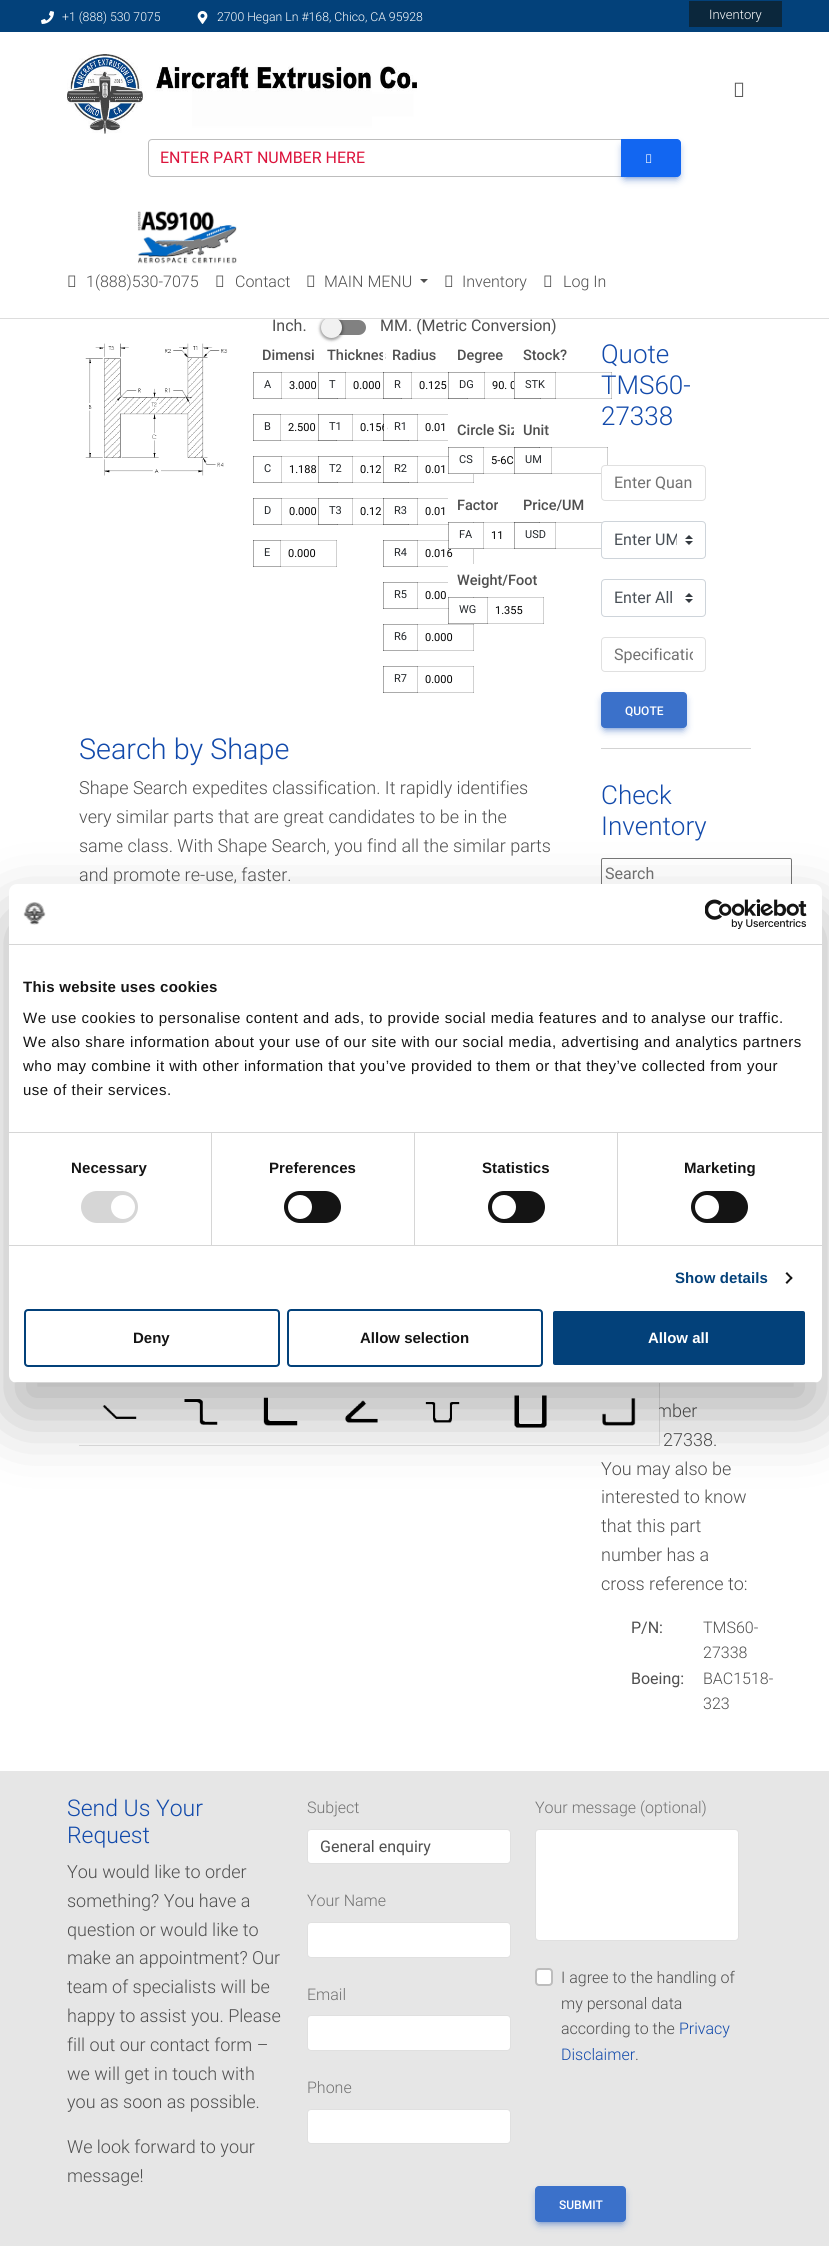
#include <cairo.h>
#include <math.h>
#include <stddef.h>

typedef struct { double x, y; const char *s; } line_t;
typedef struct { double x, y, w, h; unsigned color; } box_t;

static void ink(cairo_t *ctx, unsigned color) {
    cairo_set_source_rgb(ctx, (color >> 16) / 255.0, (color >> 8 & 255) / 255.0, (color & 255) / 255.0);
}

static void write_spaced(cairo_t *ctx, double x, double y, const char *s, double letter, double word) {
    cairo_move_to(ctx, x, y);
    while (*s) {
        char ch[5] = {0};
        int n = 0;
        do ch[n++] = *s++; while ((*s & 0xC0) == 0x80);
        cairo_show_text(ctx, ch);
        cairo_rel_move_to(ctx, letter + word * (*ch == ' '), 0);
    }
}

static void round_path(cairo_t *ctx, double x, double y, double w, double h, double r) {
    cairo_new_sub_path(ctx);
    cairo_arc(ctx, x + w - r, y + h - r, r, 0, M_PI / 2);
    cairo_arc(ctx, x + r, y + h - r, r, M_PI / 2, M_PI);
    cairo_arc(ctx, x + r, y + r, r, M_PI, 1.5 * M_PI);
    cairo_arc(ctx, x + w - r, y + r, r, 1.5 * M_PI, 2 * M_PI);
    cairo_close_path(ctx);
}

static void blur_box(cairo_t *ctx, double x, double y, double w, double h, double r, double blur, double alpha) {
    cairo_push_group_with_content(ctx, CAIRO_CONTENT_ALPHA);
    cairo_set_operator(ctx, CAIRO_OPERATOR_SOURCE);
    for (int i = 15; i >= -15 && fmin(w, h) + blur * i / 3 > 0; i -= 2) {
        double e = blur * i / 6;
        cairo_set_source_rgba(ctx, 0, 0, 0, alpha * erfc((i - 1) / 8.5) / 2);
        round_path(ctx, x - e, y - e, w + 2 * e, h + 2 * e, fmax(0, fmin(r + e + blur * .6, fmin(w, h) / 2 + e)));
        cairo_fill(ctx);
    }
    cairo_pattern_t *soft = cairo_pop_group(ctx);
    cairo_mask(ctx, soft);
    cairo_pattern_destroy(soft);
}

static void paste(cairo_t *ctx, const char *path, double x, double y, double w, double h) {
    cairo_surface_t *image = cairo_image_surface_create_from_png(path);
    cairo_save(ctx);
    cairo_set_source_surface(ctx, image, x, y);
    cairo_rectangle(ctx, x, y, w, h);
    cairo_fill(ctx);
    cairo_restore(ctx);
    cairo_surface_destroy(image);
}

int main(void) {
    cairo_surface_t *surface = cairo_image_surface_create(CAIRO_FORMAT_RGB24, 829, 2267);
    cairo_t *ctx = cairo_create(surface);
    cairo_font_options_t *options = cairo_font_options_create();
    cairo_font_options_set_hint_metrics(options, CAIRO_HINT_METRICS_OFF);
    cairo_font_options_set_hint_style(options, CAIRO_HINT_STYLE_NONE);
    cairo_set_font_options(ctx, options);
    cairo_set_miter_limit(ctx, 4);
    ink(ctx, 0xFFFFFF);
    cairo_paint(ctx);
    {
        static const box_t items[] = {
            {556, 548, 45, 1, 0xD1D1D1},
            {556, 522, 47, 1, 0xD1D1D1},
            {540, 522, 16, 1, 0xABABAB},
            {555, 522, 1, 1, 0x8C8C8C},
            {607, 447, 1, 18, 0xD1D1D1},
            {540, 447, 68, 1, 0xD1D1D1},
            {607, 447, 1, 1, 0xABABAB},
            {541, 398, 71, 1, 0xD1D1D1},
            {611, 372, 1, 27, 0xD1D1D1},
            {611, 398, 1, 1, 0xABABAB},
            {483, 522, 1, 27, 0xD1D1D1},
            {448, 522, 1, 27, 0xABABAB},
            {484, 548, 30, 1, 0xD1D1D1},
            {483, 548, 1, 1, 0x8C8C8C},
            {448, 548, 1, 1, 0x737373},
            {484, 522, 30, 1, 0xD1D1D1},
            {514, 522, 26, 1, 0x8C8C8C},
            {514, 522, 1, 1, 0x5E5E5E},
            {448, 522, 36, 1, 0xABABAB},
            {483, 522, 1, 1, 0x8C8C8C},
            {448, 522, 1, 1, 0x737373},
            {539, 522, 1, 1, 0x737373},
            {484, 372, 1, 27, 0xD1D1D1},
            {448, 372, 1, 27, 0xABABAB},
            {485, 398, 29, 1, 0xD1D1D1},
            {514, 398, 27, 1, 0xABABAB},
            {468, 398, 17, 1, 0xABABAB},
            {484, 398, 1, 1, 0x8C8C8C},
            {540, 398, 1, 1, 0x8C8C8C},
            {485, 372, 29, 1, 0xD1D1D1},
            {484, 372, 1, 1, 0x8C8C8C},
            {417, 666, 1, 27, 0xD1D1D1},
            {383, 666, 1, 27, 0xABABAB},
            {418, 692, 56, 1, 0xD1D1D1},
            {383, 692, 35, 1, 0xABABAB},
            {417, 692, 1, 1, 0x8C8C8C},
            {383, 692, 1, 1, 0x737373},
            {473, 666, 1, 27, 0xD1D1D1},
            {473, 692, 1, 1, 0xABABAB},
            {417, 624, 1, 27, 0xD1D1D1},
            {383, 624, 1, 27, 0xABABAB},
            {418, 650, 56, 1, 0xD1D1D1},
            {383, 650, 35, 1, 0xABABAB},
            {417, 650, 1, 1, 0x8C8C8C},
            {383, 650, 1, 1, 0x737373},
            {473, 624, 1, 27, 0xD1D1D1},
            {473, 650, 1, 1, 0xABABAB},
            {417, 582, 1, 27, 0xD1D1D1},
            {383, 582, 1, 27, 0xABABAB},
            {418, 608, 31, 1, 0xD1D1D1},
            {383, 608, 35, 1, 0xABABAB},
            {417, 608, 1, 1, 0x8C8C8C},
            {383, 608, 1, 1, 0x737373},
            {473, 597, 1, 1, 0xD1D1D1},
            {417, 540, 1, 27, 0xD1D1D1},
            {383, 540, 1, 27, 0xABABAB},
            {418, 566, 30, 1, 0xD1D1D1},
            {383, 566, 35, 1, 0xABABAB},
            {417, 566, 1, 1, 0x8C8C8C},
            {383, 566, 1, 1, 0x737373},
            {473, 549, 1, 18, 0xD1D1D1},
            {409, 524, 39, 1, 0xD1D1D1},
            {448, 524, 1, 1, 0x8C8C8C},
            {473, 522, 1, 1, 0x8C8C8C},
            {384, 498, 64, 1, 0xD1D1D1},
            {409, 482, 65, 1, 0xD1D1D1},
            {473, 474, 1, 9, 0xD1D1D1},
            {473, 482, 1, 1, 0xABABAB},
            {384, 456, 65, 1, 0xD1D1D1},
            {409, 440, 39, 1, 0xD1D1D1},
            {384, 414, 64, 1, 0xD1D1D1},
            {411, 372, 1, 27, 0xD1D1D1},
            {383, 372, 1, 27, 0xABABAB},
            {412, 398, 36, 1, 0xD1D1D1},
            {448, 398, 20, 1, 0x8C8C8C},
            {448, 398, 1, 1, 0x5E5E5E},
            {402, 398, 10, 1, 0xABABAB},
            {411, 398, 1, 1, 0x8C8C8C},
            {467, 398, 1, 1, 0x737373},
            {412, 372, 36, 1, 0xD1D1D1},
            {448, 372, 1, 1, 0x5E5E5E},
            {411, 372, 1, 1, 0x8C8C8C},
            {352, 498, 1, 27, 0xD1D1D1},
            {353, 524, 30, 1, 0xD1D1D1},
            {383, 524, 26, 1, 0xABABAB},
            {338, 524, 15, 1, 0xABABAB},
            {352, 524, 1, 1, 0x8C8C8C},
            {408, 524, 1, 1, 0x8C8C8C},
            {352, 456, 1, 27, 0xD1D1D1},
            {353, 482, 30, 1, 0xD1D1D1},
            {383, 482, 26, 1, 0xABABAB},
            {338, 482, 15, 1, 0xABABAB},
            {352, 482, 1, 1, 0x8C8C8C},
            {408, 482, 1, 1, 0x8C8C8C},
            {352, 414, 1, 27, 0xD1D1D1},
            {353, 440, 30, 1, 0xD1D1D1},
            {383, 440, 26, 1, 0xABABAB},
            {337, 440, 16, 1, 0xABABAB},
            {352, 440, 1, 1, 0x8C8C8C},
            {408, 440, 1, 1, 0x8C8C8C},
            {346, 398, 37, 1, 0xD1D1D1},
            {383, 398, 19, 1, 0x8C8C8C},
            {383, 398, 1, 1, 0x5E5E5E},
            {338, 398, 8, 1, 0xABABAB},
            {345, 398, 1, 1, 0x8C8C8C},
            {401, 398, 1, 1, 0x737373},
            {280, 540, 1, 27, 0xD1D1D1},
            {253, 540, 1, 27, 0xABABAB},
            {281, 566, 56, 1, 0xD1D1D1},
            {253, 566, 28, 1, 0xABABAB},
            {280, 566, 1, 1, 0x8C8C8C},
            {253, 566, 1, 1, 0x737373},
            {336, 540, 1, 27, 0xD1D1D1},
            {336, 566, 1, 1, 0xABABAB},
            {281, 498, 1, 27, 0xD1D1D1},
            {253, 498, 1, 27, 0xABABAB},
            {282, 524, 36, 1, 0xD1D1D1},
            {318, 524, 20, 1, 0x8C8C8C},
            {318, 524, 1, 1, 0x5E5E5E},
            {253, 524, 29, 1, 0xABABAB},
            {281, 524, 1, 1, 0x8C8C8C},
            {253, 524, 1, 1, 0x737373},
            {337, 524, 1, 1, 0x737373},
            {281, 456, 1, 27, 0xD1D1D1},
            {253, 456, 1, 27, 0xABABAB},
            {282, 482, 36, 1, 0xD1D1D1},
            {318, 482, 20, 1, 0x8C8C8C},
            {318, 482, 1, 1, 0x5E5E5E},
            {253, 482, 29, 1, 0xABABAB},
            {281, 482, 1, 1, 0x8C8C8C},
            {253, 482, 1, 1, 0x737373},
            {337, 482, 1, 1, 0x737373},
            {280, 414, 1, 27, 0xD1D1D1},
            {253, 414, 1, 27, 0xABABAB},
            {281, 440, 37, 1, 0xD1D1D1},
            {318, 440, 19, 1, 0x8C8C8C},
            {318, 440, 1, 1, 0x5E5E5E},
            {253, 440, 28, 1, 0xABABAB},
            {280, 440, 1, 1, 0x8C8C8C},
            {253, 440, 1, 1, 0x737373},
            {336, 440, 1, 1, 0x737373},
            {281, 372, 1, 27, 0xD1D1D1},
            {253, 372, 1, 27, 0xABABAB},
            {282, 398, 36, 1, 0xD1D1D1},
            {318, 398, 20, 1, 0x8C8C8C},
            {318, 398, 1, 1, 0x5E5E5E},
            {253, 398, 29, 1, 0xABABAB},
            {281, 398, 1, 1, 0x8C8C8C},
            {253, 398, 1, 1, 0x737373},
            {337, 398, 1, 1, 0x737373},
        };
        for (size_t i = 0; i < sizeof items / sizeof *items; i++) {
            ink(ctx, items[i].color);
            cairo_rectangle(ctx, items[i].x, items[i].y, items[i].w, items[i].h);
            cairo_fill(ctx);
        }
    }
    ink(ctx, 0x818181);
    round_path(ctx, 326, 320, 40, 15, 7.5);
    cairo_fill(ctx);
    ink(ctx, 0x000000);
    blur_box(ctx, 320, 317, 23, 23, 11.5, 1.5, 0.4);
    ink(ctx, 0xF1F1F1);
    cairo_arc(ctx, 331.5, 327.5, 10.5, 0, 2 * M_PI);
    cairo_fill(ctx);
    ink(ctx, 0xFFFFFF);
    cairo_rectangle(ctx, 322, 314, 19, 4);
    cairo_fill(ctx);
    cairo_select_font_face(ctx, "Roboto", CAIRO_FONT_SLANT_NORMAL, CAIRO_FONT_WEIGHT_NORMAL);
    cairo_set_font_size(ctx, 16);
    ink(ctx, 0x4F4F4F);
    cairo_move_to(ctx, 380, 331);
    cairo_show_text(ctx, "MM. (Metric Conversion)");
    ink(ctx, 0xDDDDDD);
    cairo_rectangle(ctx, 0, 318, 829, 1);
    cairo_fill(ctx);
    ink(ctx, 0x03417A);
    cairo_rectangle(ctx, 0, 0, 829, 32);
    cairo_fill(ctx);
    paste(ctx, "media/1.png", 41, 11, 13, 13);
    cairo_select_font_face(ctx, "Roboto Light", CAIRO_FONT_SLANT_NORMAL, CAIRO_FONT_WEIGHT_NORMAL);
    cairo_set_font_size(ctx, 12.25);
    ink(ctx, 0xFFFFFF);
    cairo_move_to(ctx, 62, 21);
    cairo_show_text(ctx, "+1 (888) 530 7075");
    paste(ctx, "media/2.png", 197, 11, 11, 13);
    cairo_move_to(ctx, 217, 21);
    cairo_show_text(ctx, "2700 Hegan Ln #168, Chico, CA 95928");
    ink(ctx, 0x0B273C);
    cairo_rectangle(ctx, 689, 1, 93, 26);
    cairo_fill(ctx);
    cairo_set_font_size(ctx, 13);
    ink(ctx, 0xFFFFFF);
    cairo_move_to(ctx, 709, 19);
    cairo_show_text(ctx, "Inventory");
    paste(ctx, "media/3.png", 67, 54, 350, 80);
    paste(ctx, "media/4.png", 734, 82, 10, 15);
    cairo_new_path(ctx);
    cairo_move_to(ctx, 152, 139.5);
    cairo_line_to(ctx, 621.5, 139.5);
    cairo_line_to(ctx, 621.5, 176.5);
    cairo_line_to(ctx, 152, 176.5);
    cairo_curve_to(ctx, 150, 176.5, 148.5, 175, 148.5, 173);
    cairo_line_to(ctx, 148.5, 143);
    cairo_curve_to(ctx, 148.5, 141, 150, 139.5, 152, 139.5);
    cairo_close_path(ctx);
    ink(ctx, 0xBDBDBD);
    cairo_set_line_width(ctx, 1);
    cairo_stroke(ctx);
    cairo_select_font_face(ctx, "Roboto", CAIRO_FONT_SLANT_NORMAL, CAIRO_FONT_WEIGHT_NORMAL);
    cairo_set_font_size(ctx, 16);
    ink(ctx, 0xDC143C);
    cairo_move_to(ctx, 160, 163);
    cairo_show_text(ctx, "ENTER PART NUMBER HERE");
    ink(ctx, 0x386BC0);
    blur_box(ctx, 625, 147, 52, 30, 0, 4.5, 1);
    ink(ctx, 0x1266F1);
    cairo_new_path(ctx);
    cairo_move_to(ctx, 621, 139);
    cairo_line_to(ctx, 677, 139);
    cairo_curve_to(ctx, 679, 139, 681, 141, 681, 143);
    cairo_line_to(ctx, 681, 173);
    cairo_curve_to(ctx, 681, 175, 679, 177, 677, 177);
    cairo_line_to(ctx, 621, 177);
    cairo_close_path(ctx);
    cairo_fill(ctx);
    paste(ctx, "media/5.png", 646, 154, 6, 9);
    paste(ctx, "media/6.png", 137, 211, 100, 53);
    paste(ctx, "media/7.png", 68, 275, 8, 12);
    cairo_select_font_face(ctx, "Roboto Light", CAIRO_FONT_SLANT_NORMAL, CAIRO_FONT_WEIGHT_NORMAL);
    ink(ctx, 0x4F4F4F);
    cairo_move_to(ctx, 86, 287);
    cairo_show_text(ctx, "1(888)530-7075");
    paste(ctx, "media/7.png", 216, 275, 8, 12);
    cairo_move_to(ctx, 235, 287);
    cairo_show_text(ctx, "Contact");
    paste(ctx, "media/7.png", 307, 275, 8, 12);
    cairo_move_to(ctx, 324, 287);
    cairo_show_text(ctx, "MAIN MENU");
    cairo_new_path(ctx);
    cairo_move_to(ctx, 420, 279);
    cairo_line_to(ctx, 428, 279);
    cairo_line_to(ctx, 424, 283);
    cairo_close_path(ctx);
    cairo_fill(ctx);
    paste(ctx, "media/7.png", 445, 275, 8, 12);
    cairo_move_to(ctx, 462, 287);
    cairo_show_text(ctx, "Inventory");
    paste(ctx, "media/7.png", 544, 275, 8, 12);
    cairo_move_to(ctx, 563, 287);
    cairo_show_text(ctx, "Log In");
    cairo_select_font_face(ctx, "Roboto", CAIRO_FONT_SLANT_NORMAL, CAIRO_FONT_WEIGHT_NORMAL);
    cairo_move_to(ctx, 272, 331);
    cairo_show_text(ctx, "Inch.");
    paste(ctx, "media/8.png", 85, 343, 143, 133);
    cairo_select_font_face(ctx, "Roboto Medium", CAIRO_FONT_SLANT_NORMAL, CAIRO_FONT_WEIGHT_NORMAL);
    cairo_set_font_size(ctx, 14.5);
    cairo_move_to(ctx, 262, 360);
    cairo_show_text(ctx, "Dimensi");
    {
        static const box_t items[] = {
            {282, 372, 36, 1, 0xD1D1D1},
            {253, 372, 29, 1, 0xABABAB},
            {281, 372, 1, 1, 0x8C8C8C},
            {253, 372, 1, 1, 0x737373},
        };
        for (size_t i = 0; i < sizeof items / sizeof *items; i++) {
            ink(ctx, items[i].color);
            cairo_rectangle(ctx, items[i].x, items[i].y, items[i].w, items[i].h);
            cairo_fill(ctx);
        }
    }
    cairo_select_font_face(ctx, "Roboto", CAIRO_FONT_SLANT_NORMAL, CAIRO_FONT_WEIGHT_NORMAL);
    cairo_set_font_size(ctx, 11);
    ink(ctx, 0x212529);
    cairo_move_to(ctx, 264, 388);
    cairo_show_text(ctx, "A");
    ink(ctx, 0x000000);
    cairo_move_to(ctx, 289, 389);
    cairo_show_text(ctx, "3.000");
    {
        static const box_t items[] = {
            {281, 414, 37, 1, 0xD1D1D1},
            {253, 414, 28, 1, 0xABABAB},
            {280, 414, 1, 1, 0x8C8C8C},
            {253, 414, 1, 1, 0x737373},
        };
        for (size_t i = 0; i < sizeof items / sizeof *items; i++) {
            ink(ctx, items[i].color);
            cairo_rectangle(ctx, items[i].x, items[i].y, items[i].w, items[i].h);
            cairo_fill(ctx);
        }
    }
    ink(ctx, 0x212529);
    cairo_move_to(ctx, 264, 430);
    cairo_show_text(ctx, "B");
    ink(ctx, 0x000000);
    cairo_move_to(ctx, 288, 431);
    cairo_show_text(ctx, "2.500");
    {
        static const box_t items[] = {
            {282, 456, 36, 1, 0xD1D1D1},
            {253, 456, 29, 1, 0xABABAB},
            {281, 456, 1, 1, 0x8C8C8C},
            {253, 456, 1, 1, 0x737373},
        };
        for (size_t i = 0; i < sizeof items / sizeof *items; i++) {
            ink(ctx, items[i].color);
            cairo_rectangle(ctx, items[i].x, items[i].y, items[i].w, items[i].h);
            cairo_fill(ctx);
        }
    }
    ink(ctx, 0x212529);
    cairo_move_to(ctx, 264, 472);
    cairo_show_text(ctx, "C");
    ink(ctx, 0x000000);
    cairo_move_to(ctx, 289, 473);
    cairo_show_text(ctx, "1.188");
    {
        static const box_t items[] = {
            {282, 498, 36, 1, 0xD1D1D1},
            {253, 498, 29, 1, 0xABABAB},
            {281, 498, 1, 1, 0x8C8C8C},
            {253, 498, 1, 1, 0x737373},
        };
        for (size_t i = 0; i < sizeof items / sizeof *items; i++) {
            ink(ctx, items[i].color);
            cairo_rectangle(ctx, items[i].x, items[i].y, items[i].w, items[i].h);
            cairo_fill(ctx);
        }
    }
    ink(ctx, 0x212529);
    cairo_move_to(ctx, 264, 514);
    cairo_show_text(ctx, "D");
    ink(ctx, 0x000000);
    cairo_move_to(ctx, 289, 515);
    cairo_show_text(ctx, "0.000");
    {
        static const box_t items[] = {
            {281, 540, 56, 1, 0xD1D1D1},
            {253, 540, 28, 1, 0xABABAB},
            {280, 540, 1, 1, 0x8C8C8C},
            {253, 540, 1, 1, 0x737373},
            {336, 540, 1, 1, 0xABABAB},
        };
        for (size_t i = 0; i < sizeof items / sizeof *items; i++) {
            ink(ctx, items[i].color);
            cairo_rectangle(ctx, items[i].x, items[i].y, items[i].w, items[i].h);
            cairo_fill(ctx);
        }
    }
    ink(ctx, 0x212529);
    cairo_move_to(ctx, 264, 556);
    cairo_show_text(ctx, "E");
    ink(ctx, 0x000000);
    cairo_move_to(ctx, 288, 557);
    cairo_show_text(ctx, "0.000");
    cairo_select_font_face(ctx, "Roboto Medium", CAIRO_FONT_SLANT_NORMAL, CAIRO_FONT_WEIGHT_NORMAL);
    cairo_set_font_size(ctx, 14.5);
    ink(ctx, 0x4F4F4F);
    cairo_move_to(ctx, 327, 360);
    cairo_show_text(ctx, "Thicknes");
    {
        static const box_t items[] = {
            {346, 372, 37, 1, 0xD1D1D1},
            {383, 372, 1, 1, 0x5E5E5E},
            {345, 372, 1, 26, 0xD1D1D1},
            {318, 372, 1, 26, 0xABABAB},
            {318, 372, 28, 1, 0xABABAB},
            {345, 372, 1, 1, 0x8C8C8C},
            {318, 372, 1, 1, 0x737373},
        };
        for (size_t i = 0; i < sizeof items / sizeof *items; i++) {
            ink(ctx, items[i].color);
            cairo_rectangle(ctx, items[i].x, items[i].y, items[i].w, items[i].h);
            cairo_fill(ctx);
        }
    }
    cairo_select_font_face(ctx, "Roboto", CAIRO_FONT_SLANT_NORMAL, CAIRO_FONT_WEIGHT_NORMAL);
    cairo_set_font_size(ctx, 11);
    ink(ctx, 0x212529);
    cairo_move_to(ctx, 329, 388);
    cairo_show_text(ctx, "T");
    ink(ctx, 0x000000);
    cairo_move_to(ctx, 353, 389);
    cairo_show_text(ctx, "0.000");
    {
        static const box_t items[] = {
            {353, 414, 30, 1, 0xD1D1D1},
            {383, 414, 1, 1, 0xABABAB},
            {318, 414, 1, 26, 0xABABAB},
            {318, 414, 35, 1, 0xABABAB},
            {352, 414, 1, 1, 0x8C8C8C},
            {318, 414, 1, 1, 0x737373},
        };
        for (size_t i = 0; i < sizeof items / sizeof *items; i++) {
            ink(ctx, items[i].color);
            cairo_rectangle(ctx, items[i].x, items[i].y, items[i].w, items[i].h);
            cairo_fill(ctx);
        }
    }
    ink(ctx, 0x212529);
    cairo_move_to(ctx, 329, 430);
    cairo_show_text(ctx, "T1");
    ink(ctx, 0x000000);
    cairo_move_to(ctx, 360, 431);
    cairo_show_text(ctx, "0.156");
    {
        static const box_t items[] = {
            {353, 456, 30, 1, 0xD1D1D1},
            {383, 456, 1, 1, 0xABABAB},
            {318, 456, 1, 26, 0xABABAB},
            {318, 456, 35, 1, 0xABABAB},
            {352, 456, 1, 1, 0x8C8C8C},
            {318, 456, 1, 1, 0x737373},
        };
        for (size_t i = 0; i < sizeof items / sizeof *items; i++) {
            ink(ctx, items[i].color);
            cairo_rectangle(ctx, items[i].x, items[i].y, items[i].w, items[i].h);
            cairo_fill(ctx);
        }
    }
    ink(ctx, 0x212529);
    cairo_move_to(ctx, 329, 472);
    cairo_show_text(ctx, "T2");
    ink(ctx, 0x000000);
    cairo_move_to(ctx, 360, 473);
    cairo_show_text(ctx, "0.12");
    {
        static const box_t items[] = {
            {353, 498, 30, 1, 0xD1D1D1},
            {383, 498, 1, 1, 0xABABAB},
            {318, 498, 1, 26, 0xABABAB},
            {318, 498, 35, 1, 0xABABAB},
            {352, 498, 1, 1, 0x8C8C8C},
            {318, 498, 1, 1, 0x737373},
        };
        for (size_t i = 0; i < sizeof items / sizeof *items; i++) {
            ink(ctx, items[i].color);
            cairo_rectangle(ctx, items[i].x, items[i].y, items[i].w, items[i].h);
            cairo_fill(ctx);
        }
    }
    ink(ctx, 0x212529);
    cairo_move_to(ctx, 329, 514);
    cairo_show_text(ctx, "T3");
    ink(ctx, 0x000000);
    cairo_move_to(ctx, 360, 515);
    cairo_show_text(ctx, "0.12");
    ink(ctx, 0xFFFFFF);
    cairo_rectangle(ctx, 383, 352, 2, 8);
    cairo_fill(ctx);
    cairo_select_font_face(ctx, "Roboto Medium", CAIRO_FONT_SLANT_NORMAL, CAIRO_FONT_WEIGHT_NORMAL);
    cairo_set_font_size(ctx, 14.5);
    ink(ctx, 0x4F4F4F);
    cairo_move_to(ctx, 392, 360);
    cairo_show_text(ctx, "Radius");
    ink(ctx, 0xABABAB);
    cairo_rectangle(ctx, 384, 372, 27, 1);
    cairo_fill(ctx);
    cairo_select_font_face(ctx, "Roboto", CAIRO_FONT_SLANT_NORMAL, CAIRO_FONT_WEIGHT_NORMAL);
    cairo_set_font_size(ctx, 11);
    ink(ctx, 0x212529);
    cairo_move_to(ctx, 394, 388);
    cairo_show_text(ctx, "R");
    ink(ctx, 0x000000);
    cairo_move_to(ctx, 419, 389);
    cairo_show_text(ctx, "0.125");
    cairo_set_source_rgba(ctx, 0, 0, 0, 0.18);
    cairo_rectangle(ctx, 383, 414, 1, 27);
    cairo_fill(ctx);
    ink(ctx, 0xFFFFFF);
    cairo_rectangle(ctx, 384, 423, 3, 9);
    cairo_fill(ctx);
    cairo_set_source_rgba(ctx, 0, 0, 0, 0.18);
    cairo_rectangle(ctx, 383, 414, 35, 1);
    cairo_fill(ctx);
    cairo_rectangle(ctx, 417, 414, 1, 27);
    cairo_fill(ctx);
    cairo_rectangle(ctx, 383, 440, 35, 1);
    cairo_fill(ctx);
    cairo_rectangle(ctx, 383, 414, 1, 27);
    cairo_fill(ctx);
    ink(ctx, 0x212529);
    cairo_move_to(ctx, 394, 430);
    cairo_show_text(ctx, "R1");
    ink(ctx, 0x000000);
    cairo_move_to(ctx, 425, 431);
    cairo_show_text(ctx, "0.01");
    cairo_set_source_rgba(ctx, 0, 0, 0, 0.18);
    cairo_rectangle(ctx, 383, 456, 1, 27);
    cairo_fill(ctx);
    cairo_rectangle(ctx, 383, 456, 35, 1);
    cairo_fill(ctx);
    cairo_rectangle(ctx, 417, 456, 1, 27);
    cairo_fill(ctx);
    cairo_rectangle(ctx, 383, 482, 35, 1);
    cairo_fill(ctx);
    cairo_rectangle(ctx, 383, 456, 1, 27);
    cairo_fill(ctx);
    ink(ctx, 0x212529);
    cairo_move_to(ctx, 394, 472);
    cairo_show_text(ctx, "R2");
    ink(ctx, 0x000000);
    cairo_move_to(ctx, 425, 473);
    cairo_show_text(ctx, "0.01");
    cairo_set_source_rgba(ctx, 0, 0, 0, 0.18);
    cairo_rectangle(ctx, 383, 498, 1, 27);
    cairo_fill(ctx);
    cairo_rectangle(ctx, 383, 498, 35, 1);
    cairo_fill(ctx);
    cairo_rectangle(ctx, 417, 498, 1, 27);
    cairo_fill(ctx);
    cairo_rectangle(ctx, 383, 524, 35, 1);
    cairo_fill(ctx);
    cairo_rectangle(ctx, 383, 498, 1, 27);
    cairo_fill(ctx);
    ink(ctx, 0x212529);
    cairo_move_to(ctx, 394, 514);
    cairo_show_text(ctx, "R3");
    ink(ctx, 0x000000);
    cairo_move_to(ctx, 425, 515);
    cairo_show_text(ctx, "0.01");
    {
        static const box_t items[] = {
            {418, 540, 30, 1, 0xD1D1D1},
            {448, 540, 1, 1, 0x8C8C8C},
            {383, 540, 35, 1, 0xABABAB},
            {417, 540, 1, 1, 0x8C8C8C},
            {383, 540, 1, 1, 0x737373},
        };
        for (size_t i = 0; i < sizeof items / sizeof *items; i++) {
            ink(ctx, items[i].color);
            cairo_rectangle(ctx, items[i].x, items[i].y, items[i].w, items[i].h);
            cairo_fill(ctx);
        }
    }
    ink(ctx, 0x212529);
    cairo_move_to(ctx, 394, 556);
    cairo_show_text(ctx, "R4");
    ink(ctx, 0x000000);
    cairo_move_to(ctx, 425, 557);
    cairo_show_text(ctx, "0.016");
    {
        static const box_t items[] = {
            {418, 582, 30, 1, 0xD1D1D1},
            {383, 582, 35, 1, 0xABABAB},
            {417, 582, 1, 1, 0x8C8C8C},
            {383, 582, 1, 1, 0x737373},
        };
        for (size_t i = 0; i < sizeof items / sizeof *items; i++) {
            ink(ctx, items[i].color);
            cairo_rectangle(ctx, items[i].x, items[i].y, items[i].w, items[i].h);
            cairo_fill(ctx);
        }
    }
    ink(ctx, 0x212529);
    cairo_move_to(ctx, 394, 598);
    cairo_show_text(ctx, "R5");
    ink(ctx, 0x000000);
    cairo_move_to(ctx, 425, 599);
    cairo_show_text(ctx, "0.00");
    {
        static const box_t items[] = {
            {418, 624, 56, 1, 0xD1D1D1},
            {383, 624, 35, 1, 0xABABAB},
            {417, 624, 1, 1, 0x8C8C8C},
            {383, 624, 1, 1, 0x737373},
            {473, 624, 1, 1, 0xABABAB},
        };
        for (size_t i = 0; i < sizeof items / sizeof *items; i++) {
            ink(ctx, items[i].color);
            cairo_rectangle(ctx, items[i].x, items[i].y, items[i].w, items[i].h);
            cairo_fill(ctx);
        }
    }
    ink(ctx, 0x212529);
    cairo_move_to(ctx, 394, 640);
    cairo_show_text(ctx, "R6");
    ink(ctx, 0x000000);
    cairo_move_to(ctx, 425, 641);
    cairo_show_text(ctx, "0.000");
    {
        static const box_t items[] = {
            {418, 666, 56, 1, 0xD1D1D1},
            {383, 666, 35, 1, 0xABABAB},
            {417, 666, 1, 1, 0x8C8C8C},
            {383, 666, 1, 1, 0x737373},
            {473, 666, 1, 1, 0xABABAB},
        };
        for (size_t i = 0; i < sizeof items / sizeof *items; i++) {
            ink(ctx, items[i].color);
            cairo_rectangle(ctx, items[i].x, items[i].y, items[i].w, items[i].h);
            cairo_fill(ctx);
        }
    }
    ink(ctx, 0x212529);
    cairo_move_to(ctx, 394, 682);
    cairo_show_text(ctx, "R7");
    ink(ctx, 0x000000);
    cairo_move_to(ctx, 425, 683);
    cairo_show_text(ctx, "0.000");
    cairo_select_font_face(ctx, "Roboto Medium", CAIRO_FONT_SLANT_NORMAL, CAIRO_FONT_WEIGHT_NORMAL);
    cairo_set_font_size(ctx, 14.5);
    ink(ctx, 0x4F4F4F);
    cairo_move_to(ctx, 457, 360);
    cairo_show_text(ctx, "Degree");
    ink(ctx, 0xABABAB);
    cairo_rectangle(ctx, 449, 372, 35, 1);
    cairo_fill(ctx);
    cairo_select_font_face(ctx, "Roboto", CAIRO_FONT_SLANT_NORMAL, CAIRO_FONT_WEIGHT_NORMAL);
    cairo_set_font_size(ctx, 11);
    ink(ctx, 0x212529);
    cairo_move_to(ctx, 459, 388);
    cairo_show_text(ctx, "DG");
    ink(ctx, 0x000000);
    cairo_move_to(ctx, 492, 389);
    cairo_show_text(ctx, "90. 0");
    cairo_select_font_face(ctx, "Roboto Medium", CAIRO_FONT_SLANT_NORMAL, CAIRO_FONT_WEIGHT_NORMAL);
    cairo_set_font_size(ctx, 14.5);
    ink(ctx, 0x4F4F4F);
    cairo_move_to(ctx, 457, 435);
    cairo_show_text(ctx, "Circle Siz");
    ink(ctx, 0xD1D1D1);
    cairo_rectangle(ctx, 448, 447, 66, 1);
    cairo_fill(ctx);
    ink(ctx, 0xABABAB);
    cairo_rectangle(ctx, 514, 447, 26, 1);
    cairo_fill(ctx);
    ink(ctx, 0x8C8C8C);
    cairo_rectangle(ctx, 539, 447, 1, 1);
    cairo_fill(ctx);
    cairo_set_source_rgba(ctx, 0, 0, 0, 0.18);
    cairo_rectangle(ctx, 448, 473, 66, 1);
    cairo_fill(ctx);
    cairo_rectangle(ctx, 448, 447, 1, 27);
    cairo_fill(ctx);
    cairo_rectangle(ctx, 448, 447, 36, 1);
    cairo_fill(ctx);
    cairo_rectangle(ctx, 483, 447, 1, 27);
    cairo_fill(ctx);
    cairo_rectangle(ctx, 448, 473, 36, 1);
    cairo_fill(ctx);
    cairo_rectangle(ctx, 448, 447, 1, 27);
    cairo_fill(ctx);
    cairo_select_font_face(ctx, "Roboto", CAIRO_FONT_SLANT_NORMAL, CAIRO_FONT_WEIGHT_NORMAL);
    cairo_set_font_size(ctx, 11);
    ink(ctx, 0x212529);
    cairo_move_to(ctx, 459, 463);
    cairo_show_text(ctx, "CS");
    ink(ctx, 0x000000);
    cairo_move_to(ctx, 491, 464);
    cairo_show_text(ctx, "5-6C");
    cairo_select_font_face(ctx, "Roboto Medium", CAIRO_FONT_SLANT_NORMAL, CAIRO_FONT_WEIGHT_NORMAL);
    cairo_set_font_size(ctx, 14.5);
    ink(ctx, 0x4F4F4F);
    cairo_move_to(ctx, 457, 510);
    cairo_show_text(ctx, "Factor");
    ink(ctx, 0xABABAB);
    cairo_rectangle(ctx, 449, 548, 34, 1);
    cairo_fill(ctx);
    cairo_select_font_face(ctx, "Roboto", CAIRO_FONT_SLANT_NORMAL, CAIRO_FONT_WEIGHT_NORMAL);
    cairo_set_font_size(ctx, 11);
    ink(ctx, 0x212529);
    cairo_move_to(ctx, 459, 538);
    cairo_show_text(ctx, "FA");
    ink(ctx, 0x000000);
    cairo_move_to(ctx, 491, 539);
    cairo_show_text(ctx, "11");
    ink(ctx, 0xFFFFFF);
    cairo_rectangle(ctx, 473, 564, 1, 3);
    cairo_fill(ctx);
    cairo_select_font_face(ctx, "Roboto Medium", CAIRO_FONT_SLANT_NORMAL, CAIRO_FONT_WEIGHT_NORMAL);
    cairo_set_font_size(ctx, 14.5);
    ink(ctx, 0x4F4F4F);
    cairo_move_to(ctx, 457, 585);
    cairo_show_text(ctx, "Weight/Foot");
    cairo_set_source_rgba(ctx, 0, 0, 0, 0.18);
    cairo_rectangle(ctx, 448, 597, 96, 1);
    cairo_fill(ctx);
    cairo_rectangle(ctx, 543, 597, 1, 27);
    cairo_fill(ctx);
    cairo_rectangle(ctx, 448, 623, 96, 1);
    cairo_fill(ctx);
    cairo_rectangle(ctx, 448, 597, 1, 27);
    cairo_fill(ctx);
    cairo_rectangle(ctx, 448, 597, 40, 1);
    cairo_fill(ctx);
    cairo_rectangle(ctx, 487, 597, 1, 27);
    cairo_fill(ctx);
    cairo_rectangle(ctx, 448, 623, 40, 1);
    cairo_fill(ctx);
    cairo_rectangle(ctx, 448, 597, 1, 27);
    cairo_fill(ctx);
    cairo_select_font_face(ctx, "Roboto", CAIRO_FONT_SLANT_NORMAL, CAIRO_FONT_WEIGHT_NORMAL);
    cairo_set_font_size(ctx, 11);
    ink(ctx, 0x212529);
    cairo_move_to(ctx, 459, 613);
    cairo_show_text(ctx, "WG");
    ink(ctx, 0x000000);
    cairo_move_to(ctx, 495, 614);
    cairo_show_text(ctx, "1.355");
    cairo_select_font_face(ctx, "Roboto Medium", CAIRO_FONT_SLANT_NORMAL, CAIRO_FONT_WEIGHT_NORMAL);
    cairo_set_font_size(ctx, 14.5);
    ink(ctx, 0x4F4F4F);
    cairo_move_to(ctx, 523, 360);
    cairo_show_text(ctx, "Stock?");
    ink(ctx, 0xD1D1D1);
    cairo_rectangle(ctx, 514, 372, 98, 1);
    cairo_fill(ctx);
    ink(ctx, 0xABABAB);
    cairo_rectangle(ctx, 611, 372, 1, 1);
    cairo_fill(ctx);
    ink(ctx, 0xFFFFFF);
    cairo_rectangle(ctx, 514, 381, 2, 8);
    cairo_fill(ctx);
    cairo_set_source_rgba(ctx, 0, 0, 0, 0.18);
    cairo_rectangle(ctx, 514, 372, 1, 27);
    cairo_fill(ctx);
    cairo_rectangle(ctx, 514, 372, 42, 1);
    cairo_fill(ctx);
    cairo_rectangle(ctx, 555, 372, 1, 27);
    cairo_fill(ctx);
    cairo_rectangle(ctx, 514, 398, 42, 1);
    cairo_fill(ctx);
    cairo_rectangle(ctx, 514, 372, 1, 27);
    cairo_fill(ctx);
    cairo_select_font_face(ctx, "Roboto", CAIRO_FONT_SLANT_NORMAL, CAIRO_FONT_WEIGHT_NORMAL);
    cairo_set_font_size(ctx, 11);
    ink(ctx, 0x212529);
    cairo_move_to(ctx, 525, 388);
    cairo_show_text(ctx, "STK");
    ink(ctx, 0xFFFFFF);
    cairo_rectangle(ctx, 514, 427, 4, 8);
    cairo_fill(ctx);
    cairo_select_font_face(ctx, "Roboto Medium", CAIRO_FONT_SLANT_NORMAL, CAIRO_FONT_WEIGHT_NORMAL);
    cairo_set_font_size(ctx, 14.5);
    ink(ctx, 0x4F4F4F);
    cairo_move_to(ctx, 523, 435);
    cairo_show_text(ctx, "Unit");
    cairo_set_source_rgba(ctx, 0, 0, 0, 0.18);
    cairo_rectangle(ctx, 514, 473, 94, 1);
    cairo_fill(ctx);
    cairo_rectangle(ctx, 514, 447, 1, 27);
    cairo_fill(ctx);
    cairo_rectangle(ctx, 514, 447, 38, 1);
    cairo_fill(ctx);
    cairo_rectangle(ctx, 551, 447, 1, 27);
    cairo_fill(ctx);
    cairo_rectangle(ctx, 514, 473, 38, 1);
    cairo_fill(ctx);
    cairo_rectangle(ctx, 514, 447, 1, 27);
    cairo_fill(ctx);
    cairo_select_font_face(ctx, "Roboto", CAIRO_FONT_SLANT_NORMAL, CAIRO_FONT_WEIGHT_NORMAL);
    cairo_set_font_size(ctx, 11);
    ink(ctx, 0x212529);
    cairo_move_to(ctx, 525, 463);
    cairo_show_text(ctx, "UM");
    cairo_select_font_face(ctx, "Roboto Medium", CAIRO_FONT_SLANT_NORMAL, CAIRO_FONT_WEIGHT_NORMAL);
    cairo_set_font_size(ctx, 14.5);
    ink(ctx, 0x4F4F4F);
    cairo_move_to(ctx, 523, 510);
    cairo_show_text(ctx, "Price/UM");
    {
        static const box_t items[] = {
            {555, 523, 1, 26, 0xD1D1D1},
            {514, 523, 1, 26, 0xABABAB},
            {514, 548, 42, 1, 0xABABAB},
            {555, 548, 1, 1, 0x8C8C8C},
            {514, 548, 1, 1, 0x737373},
        };
        for (size_t i = 0; i < sizeof items / sizeof *items; i++) {
            ink(ctx, items[i].color);
            cairo_rectangle(ctx, items[i].x, items[i].y, items[i].w, items[i].h);
            cairo_fill(ctx);
        }
    }
    cairo_select_font_face(ctx, "Roboto", CAIRO_FONT_SLANT_NORMAL, CAIRO_FONT_WEIGHT_NORMAL);
    cairo_set_font_size(ctx, 11);
    ink(ctx, 0x212529);
    cairo_move_to(ctx, 525, 538);
    cairo_show_text(ctx, "USD");
    cairo_select_font_face(ctx, "Roboto Light", CAIRO_FONT_SLANT_NORMAL, CAIRO_FONT_WEIGHT_NORMAL);
    cairo_set_font_size(ctx, 28.75);
    ink(ctx, 0x124AAB);
    cairo_move_to(ctx, 79, 759);
    cairo_show_text(ctx, "Search by Shape");
    cairo_set_font_size(ctx, 18);
    ink(ctx, 0x4F4F4F);
    {
        static const line_t items[] = {
            {79, 794, "Shape Search expedites classification. It rapidly identifies"},
            {79, 823, "very similar parts that are great candidates to be in the"},
            {79, 852, "same class. With Shape Search, you find all the similar parts"},
            {79, 881, "and promote re-use, faster."},
        };
        for (size_t i = 0; i < sizeof items / sizeof *items; i++) {
            cairo_move_to(ctx, items[i].x, items[i].y);
            cairo_show_text(ctx, items[i].s);
        }
    }
    ink(ctx, 0xE0E0E0);
    cairo_rectangle(ctx, 79, 1445, 581, 1);
    cairo_fill(ctx);
    paste(ctx, "media/9.png", 102, 1405, 35, 14);
    paste(ctx, "media/10.png", 184, 1399, 34, 26);
    paste(ctx, "media/11.png", 263, 1397, 35, 29);
    paste(ctx, "media/12.png", 345, 1400, 33, 23);
    paste(ctx, "media/13.png", 425, 1402, 35, 21);
    paste(ctx, "media/14.png", 514, 1395, 33, 33);
    cairo_rectangle(ctx, 659, 1377, 1, 69);
    cairo_fill(ctx);
    ink(ctx, 0x4F4F4F);
    cairo_move_to(ctx, 656, 1417);
    cairo_show_text(ctx, "mber");
    ink(ctx, 0xFFFFFF);
    cairo_rectangle(ctx, 657, 1407, 2, 10);
    cairo_fill(ctx);
    paste(ctx, "media/15.png", 602, 1398, 34, 28);
    cairo_set_font_size(ctx, 26);
    ink(ctx, 0x124AAB);
    {
        static const line_t items[] = {
            {601, 363, "Quote"},
            {601, 394, "TMS60-"},
            {601, 425, "27338"},
        };
        for (size_t i = 0; i < sizeof items / sizeof *items; i++) {
            cairo_move_to(ctx, items[i].x, items[i].y);
            cairo_show_text(ctx, items[i].s);
        }
    }
    ink(ctx, 0xFFFFFF);
    round_path(ctx, 601.5, 465.5, 104, 35, 3.5);
    cairo_fill_preserve(ctx);
    ink(ctx, 0xE0E0E0);
    cairo_stroke(ctx);
    cairo_select_font_face(ctx, "Roboto", CAIRO_FONT_SLANT_NORMAL, CAIRO_FONT_WEIGHT_NORMAL);
    cairo_set_font_size(ctx, 16);
    ink(ctx, 0x727272);
    cairo_move_to(ctx, 614, 488);
    cairo_show_text(ctx, "Enter Quan");
    ink(ctx, 0xFFFFFF);
    round_path(ctx, 601, 521, 105, 38, 4);
    cairo_fill(ctx);
    paste(ctx, "media/16.png", 685, 535, 8, 10);
    round_path(ctx, 601.5, 521.5, 104, 37, 3.5);
    ink(ctx, 0xCED4DA);
    cairo_stroke(ctx);
    cairo_save(ctx);
    cairo_rectangle(ctx, 614, 528, 63, 24);
    cairo_clip(ctx);
    ink(ctx, 0x495057);
    cairo_move_to(ctx, 614, 545);
    cairo_show_text(ctx, "Enter UM");
    cairo_restore(ctx);
    paste(ctx, "media/16.png", 685, 593, 8, 10);
    round_path(ctx, 601.5, 579.5, 104, 37, 3.5);
    cairo_stroke(ctx);
    ink(ctx, 0x495057);
    cairo_move_to(ctx, 614, 603);
    cairo_show_text(ctx, "Enter All");
    round_path(ctx, 601.5, 637.5, 104, 34, 3.5);
    ink(ctx, 0xE0E0E0);
    cairo_stroke(ctx);
    cairo_save(ctx);
    cairo_rectangle(ctx, 614, 645, 79, 19);
    cairo_clip(ctx);
    ink(ctx, 0x727272);
    cairo_move_to(ctx, 614, 660);
    cairo_show_text(ctx, "Specificatio");
    cairo_restore(ctx);
    ink(ctx, 0x386BC0);
    blur_box(ctx, 605, 700, 78, 28, 0, 4.5, 1);
    ink(ctx, 0x3B71CA);
    round_path(ctx, 601, 692, 86, 36, 4);
    cairo_fill(ctx);
    cairo_select_font_face(ctx, "Roboto Medium", CAIRO_FONT_SLANT_NORMAL, CAIRO_FONT_WEIGHT_NORMAL);
    cairo_set_font_size(ctx, 12);
    ink(ctx, 0xFFFFFF);
    cairo_move_to(ctx, 625, 715);
    cairo_show_text(ctx, "QUOTE");
    ink(ctx, 0xD3D3D3);
    cairo_rectangle(ctx, 601, 748, 150, 1);
    cairo_fill(ctx);
    cairo_select_font_face(ctx, "Roboto Light", CAIRO_FONT_SLANT_NORMAL, CAIRO_FONT_WEIGHT_NORMAL);
    cairo_set_font_size(ctx, 26);
    ink(ctx, 0x124AAB);
    cairo_move_to(ctx, 601, 804);
    cairo_show_text(ctx, "Check");
    cairo_move_to(ctx, 601, 835);
    cairo_show_text(ctx, "Inventory");
    round_path(ctx, 601.5, 858.5, 190, 31, 1.5);
    ink(ctx, 0x767676);
    cairo_stroke(ctx);
    cairo_select_font_face(ctx, "Roboto", CAIRO_FONT_SLANT_NORMAL, CAIRO_FONT_WEIGHT_NORMAL);
    cairo_set_font_size(ctx, 16);
    ink(ctx, 0x727272);
    cairo_move_to(ctx, 605, 879);
    cairo_show_text(ctx, "Search");
    cairo_select_font_face(ctx, "Roboto Light", CAIRO_FONT_SLANT_NORMAL, CAIRO_FONT_WEIGHT_NORMAL);
    cairo_set_font_size(ctx, 18);
    ink(ctx, 0x4F4F4F);
    {
        static const line_t items[] = {
            {663, 1446, "27338."},
            {601, 1475, "You may also be"},
            {601, 1503, "interested to know"},
            {601, 1532, "that this part"},
            {601, 1561, "number has a"},
            {601, 1590, "cross reference to:"},
        };
        for (size_t i = 0; i < sizeof items / sizeof *items; i++) {
            cairo_move_to(ctx, items[i].x, items[i].y);
            cairo_show_text(ctx, items[i].s);
        }
    }
    cairo_select_font_face(ctx, "Roboto", CAIRO_FONT_SLANT_NORMAL, CAIRO_FONT_WEIGHT_NORMAL);
    cairo_set_font_size(ctx, 16);
    cairo_move_to(ctx, 631, 1633);
    cairo_show_text(ctx, "P/N:");
    cairo_select_font_face(ctx, "Roboto Light", CAIRO_FONT_SLANT_NORMAL, CAIRO_FONT_WEIGHT_NORMAL);
    cairo_move_to(ctx, 703, 1633);
    cairo_show_text(ctx, "TMS60-");
    cairo_move_to(ctx, 703, 1658);
    cairo_show_text(ctx, "27338");
    cairo_select_font_face(ctx, "Roboto", CAIRO_FONT_SLANT_NORMAL, CAIRO_FONT_WEIGHT_NORMAL);
    cairo_move_to(ctx, 631, 1684);
    cairo_show_text(ctx, "Boeing:");
    cairo_select_font_face(ctx, "Roboto Light", CAIRO_FONT_SLANT_NORMAL, CAIRO_FONT_WEIGHT_NORMAL);
    cairo_move_to(ctx, 703, 1684);
    cairo_show_text(ctx, "BAC1518-");
    cairo_move_to(ctx, 703, 1709);
    cairo_show_text(ctx, "323");
    ink(ctx, 0x000000);
    blur_box(ctx, 9, 916, 813, 499, 8, 34, 0.3);
    ink(ctx, 0xFFFFFF);
    round_path(ctx, 9, 884, 813, 499, 8);
    cairo_fill(ctx);
    ink(ctx, 0xD6D6D6);
    cairo_rectangle(ctx, 9, 944, 813, 1);
    cairo_fill(ctx);
    paste(ctx, "media/17.png", 23, 902, 23, 23);
    paste(ctx, "media/18.png", 705, 899, 102, 30);
    cairo_rectangle(ctx, 9, 1132, 813, 1);
    cairo_fill(ctx);
    cairo_select_font_face(ctx, "Liberation Sans", CAIRO_FONT_SLANT_NORMAL, CAIRO_FONT_WEIGHT_BOLD);
    cairo_set_font_size(ctx, 15);
    ink(ctx, 0x141414);
    write_spaced(ctx, 23, 992, "This website uses cookies", 0.25, 0);
    cairo_select_font_face(ctx, "Liberation Sans", CAIRO_FONT_SLANT_NORMAL, CAIRO_FONT_WEIGHT_NORMAL);
    {
        static const line_t items[] = {
            {23, 1023, "We use cookies to personalise content and ads, to provide social media features and to analyse our traffic."},
            {23, 1047, "We also share information about your use of our site with our social media, advertising and analytics partners"},
            {23, 1071, "who may combine it with other information that you’ve provided to them or that they’ve collected from your"},
            {23, 1095, "use of their services."},
        };
        for (size_t i = 0; i < sizeof items / sizeof *items; i++) {
            write_spaced(ctx, items[i].x, items[i].y, items[i].s, 0.5, 0);
        }
    }
    ink(ctx, 0xD6D6D6);
    cairo_rectangle(ctx, 9, 1245, 813, 1);
    cairo_fill(ctx);
    cairo_rectangle(ctx, 211, 1133, 1, 112);
    cairo_fill(ctx);
    cairo_select_font_face(ctx, "Liberation Sans", CAIRO_FONT_SLANT_NORMAL, CAIRO_FONT_WEIGHT_BOLD);
    ink(ctx, 0x141414);
    write_spaced(ctx, 71, 1173, "Necessary", 0.1, 0);
    ink(ctx, 0xD6D6D6);
    round_path(ctx, 81, 1191, 57, 32, 16);
    cairo_fill(ctx);
    ink(ctx, 0xFFFFFF);
    cairo_arc(ctx, 123, 1207, 12, 0, 2 * M_PI);
    cairo_fill(ctx);
    ink(ctx, 0xD6D6D6);
    cairo_rectangle(ctx, 414, 1133, 1, 112);
    cairo_fill(ctx);
    ink(ctx, 0x141414);
    write_spaced(ctx, 269, 1173, "Preferences", 0.1, 0);
    round_path(ctx, 284, 1191, 57, 32, 16);
    cairo_fill(ctx);
    ink(ctx, 0xFFFFFF);
    cairo_arc(ctx, 300, 1207, 12, 0, 2 * M_PI);
    cairo_fill(ctx);
    ink(ctx, 0xD6D6D6);
    cairo_rectangle(ctx, 617, 1133, 1, 112);
    cairo_fill(ctx);
    ink(ctx, 0x141414);
    write_spaced(ctx, 482, 1173, "Statistics", 0.1, 0);
    round_path(ctx, 488, 1191, 57, 32, 16);
    cairo_fill(ctx);
    ink(ctx, 0xFFFFFF);
    cairo_arc(ctx, 504, 1207, 12, 0, 2 * M_PI);
    cairo_fill(ctx);
    ink(ctx, 0x141414);
    write_spaced(ctx, 684, 1173, "Marketing", 0.1, 0);
    round_path(ctx, 691, 1191, 57, 32, 16);
    cairo_fill(ctx);
    ink(ctx, 0xFFFFFF);
    cairo_arc(ctx, 707, 1207, 12, 0, 2 * M_PI);
    cairo_fill(ctx);
    ink(ctx, 0x03417A);
    write_spaced(ctx, 675, 1283, "Show details", 0.1, 0);
    ink(ctx, 0x141414);
    cairo_new_path(ctx);
    cairo_move_to(ctx, 787, 1272);
    cairo_line_to(ctx, 792.5, 1278);
    cairo_line_to(ctx, 791.5, 1279.5);
    cairo_line_to(ctx, 785.5, 1273.5);
    cairo_close_path(ctx);
    cairo_fill(ctx);
    cairo_new_path(ctx);
    cairo_move_to(ctx, 791.5, 1276.5);
    cairo_line_to(ctx, 792.5, 1278);
    cairo_line_to(ctx, 787, 1284);
    cairo_line_to(ctx, 785.5, 1282.5);
    cairo_close_path(ctx);
    cairo_fill(ctx);
    cairo_save(ctx);
    round_path(ctx, 9, 884, 813, 499, 8);
    cairo_clip(ctx);
    ink(ctx, 0xD6D6D6);
    cairo_rectangle(ctx, 9, 1382, 813, 1);
    cairo_fill(ctx);
    cairo_restore(ctx);
    round_path(ctx, 25, 1310, 254, 56, 3);
    ink(ctx, 0x03417A);
    cairo_set_line_width(ctx, 2);
    cairo_stroke(ctx);
    ink(ctx, 0x141414);
    cairo_move_to(ctx, 133, 1343);
    cairo_show_text(ctx, "Deny");
    round_path(ctx, 288, 1310, 254, 56, 3);
    ink(ctx, 0x03417A);
    cairo_stroke(ctx);
    ink(ctx, 0x141414);
    cairo_move_to(ctx, 360, 1343);
    cairo_show_text(ctx, "Allow selection");
    ink(ctx, 0x03417A);
    round_path(ctx, 552, 1310, 254, 56, 3);
    cairo_fill_preserve(ctx);
    ink(ctx, 0xFFFFFF);
    cairo_stroke(ctx);
    cairo_move_to(ctx, 648, 1343);
    cairo_show_text(ctx, "Allow all");
    ink(ctx, 0xE6E6E6);
    cairo_rectangle(ctx, 0, 1771, 829, 475);
    cairo_fill(ctx);
    cairo_select_font_face(ctx, "Roboto Light", CAIRO_FONT_SLANT_NORMAL, CAIRO_FONT_WEIGHT_NORMAL);
    cairo_set_font_size(ctx, 23);
    ink(ctx, 0x124AAB);
    cairo_move_to(ctx, 67, 1816);
    cairo_show_text(ctx, "Send Us Your");
    cairo_move_to(ctx, 67, 1843);
    cairo_show_text(ctx, "Request");
    cairo_set_font_size(ctx, 18);
    ink(ctx, 0x4F4F4F);
    {
        static const line_t items[] = {
            {67, 1878, "You would like to order"},
            {67, 1907, "something? You have a"},
            {67, 1936, "question or would like to"},
            {67, 1964, "make an appointment? Our"},
            {67, 1993, "team of specialists will be"},
            {67, 2022, "happy to assist you. Please"},
            {67, 2051, "fill out our contact form –"},
            {67, 2080, "we will get in touch with"},
            {67, 2108, "you as soon as possible."},
            {67, 2153, "We look forward to your"},
            {67, 2182, "message!"},
        };
        for (size_t i = 0; i < sizeof items / sizeof *items; i++) {
            cairo_move_to(ctx, items[i].x, items[i].y);
            cairo_show_text(ctx, items[i].s);
        }
    }
    cairo_set_font_size(ctx, 16);
    ink(ctx, 0x727272);
    cairo_move_to(ctx, 307, 1813);
    cairo_show_text(ctx, "Subject");
    ink(ctx, 0xFFFFFF);
    round_path(ctx, 307.5, 1829.5, 203, 34, 3.5);
    cairo_fill_preserve(ctx);
    ink(ctx, 0xE0E0E0);
    cairo_set_line_width(ctx, 1);
    cairo_stroke(ctx);
    cairo_select_font_face(ctx, "Roboto", CAIRO_FONT_SLANT_NORMAL, CAIRO_FONT_WEIGHT_NORMAL);
    ink(ctx, 0x4F4F4F);
    cairo_move_to(ctx, 320, 1852);
    cairo_show_text(ctx, "General enquiry");
    cairo_select_font_face(ctx, "Roboto Light", CAIRO_FONT_SLANT_NORMAL, CAIRO_FONT_WEIGHT_NORMAL);
    ink(ctx, 0x727272);
    cairo_move_to(ctx, 307, 1906);
    cairo_show_text(ctx, "Your Name");
    ink(ctx, 0xFFFFFF);
    round_path(ctx, 307.5, 1922.5, 203, 35, 3.5);
    cairo_fill_preserve(ctx);
    ink(ctx, 0xE0E0E0);
    cairo_stroke(ctx);
    ink(ctx, 0x727272);
    cairo_move_to(ctx, 307, 2000);
    cairo_show_text(ctx, "Email");
    ink(ctx, 0xFFFFFF);
    round_path(ctx, 307.5, 2015.5, 203, 35, 3.5);
    cairo_fill_preserve(ctx);
    ink(ctx, 0xE0E0E0);
    cairo_stroke(ctx);
    ink(ctx, 0x727272);
    cairo_move_to(ctx, 307, 2093);
    cairo_show_text(ctx, "Phone");
    ink(ctx, 0xFFFFFF);
    round_path(ctx, 307.5, 2109.5, 203, 34, 3.5);
    cairo_fill_preserve(ctx);
    ink(ctx, 0xE0E0E0);
    cairo_stroke(ctx);
    ink(ctx, 0x727272);
    cairo_move_to(ctx, 535, 1813);
    cairo_show_text(ctx, "Your message (optional)");
    ink(ctx, 0xFFFFFF);
    round_path(ctx, 535.5, 1829.5, 203, 111, 3.5);
    cairo_fill_preserve(ctx);
    ink(ctx, 0xE0E0E0);
    cairo_stroke(ctx);
    ink(ctx, 0xFFFFFF);
    round_path(ctx, 536, 1969, 16, 16, 3);
    cairo_fill_preserve(ctx);
    ink(ctx, 0xBDBDBD);
    cairo_set_line_width(ctx, 2);
    cairo_stroke(ctx);
    ink(ctx, 0x4F4F4F);
    {
        static const line_t items[] = {
            {561, 1983, "I agree to the handling of"},
            {561, 2009, "my personal data"},
            {561, 2034, "according to the"},
        };
        for (size_t i = 0; i < sizeof items / sizeof *items; i++) {
            cairo_move_to(ctx, items[i].x, items[i].y);
            cairo_show_text(ctx, items[i].s);
        }
    }
    ink(ctx, 0x124AAB);
    cairo_move_to(ctx, 679, 2034);
    cairo_show_text(ctx, "Privacy");
    cairo_move_to(ctx, 561, 2060);
    cairo_show_text(ctx, "Disclaimer");
    ink(ctx, 0x4F4F4F);
    cairo_move_to(ctx, 635, 2060);
    cairo_show_text(ctx, ".");
    ink(ctx, 0x386BC0);
    blur_box(ctx, 539, 2194, 83, 28, 0, 4.5, 1);
    ink(ctx, 0x3B71CA);
    round_path(ctx, 535, 2186, 91, 36, 4);
    cairo_fill(ctx);
    cairo_select_font_face(ctx, "Roboto Medium", CAIRO_FONT_SLANT_NORMAL, CAIRO_FONT_WEIGHT_NORMAL);
    cairo_set_font_size(ctx, 12);
    ink(ctx, 0xFFFFFF);
    cairo_move_to(ctx, 559, 2209);
    cairo_show_text(ctx, "SUBMIT");
    cairo_surface_write_to_png(surface, "image.png");
    cairo_font_options_destroy(options);
    cairo_destroy(ctx);
    cairo_surface_destroy(surface);
    return 0;
}
